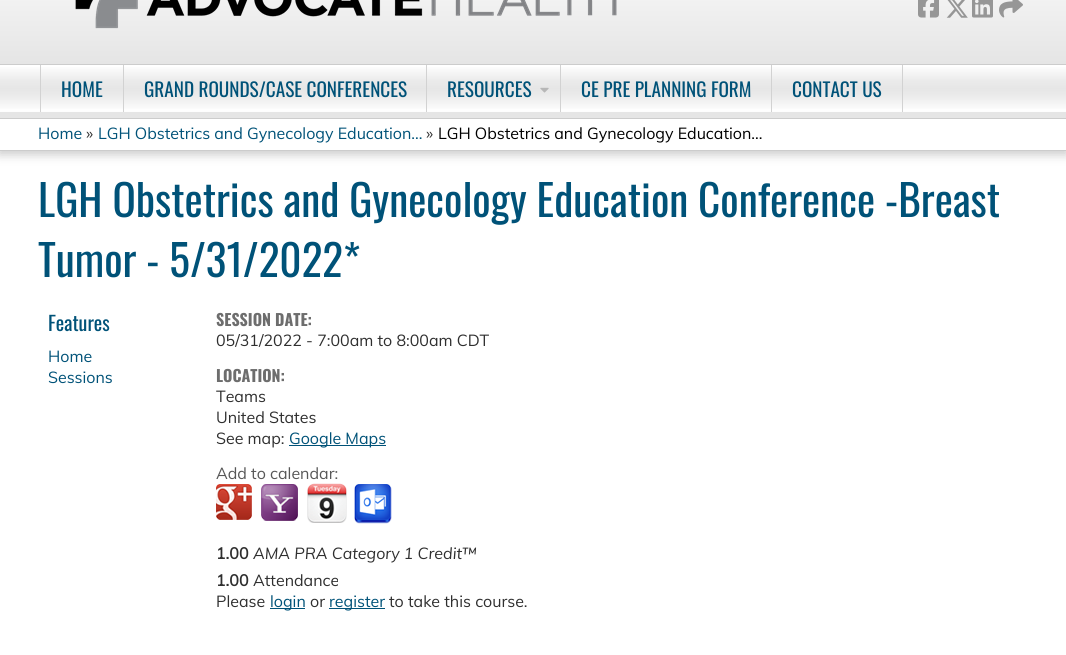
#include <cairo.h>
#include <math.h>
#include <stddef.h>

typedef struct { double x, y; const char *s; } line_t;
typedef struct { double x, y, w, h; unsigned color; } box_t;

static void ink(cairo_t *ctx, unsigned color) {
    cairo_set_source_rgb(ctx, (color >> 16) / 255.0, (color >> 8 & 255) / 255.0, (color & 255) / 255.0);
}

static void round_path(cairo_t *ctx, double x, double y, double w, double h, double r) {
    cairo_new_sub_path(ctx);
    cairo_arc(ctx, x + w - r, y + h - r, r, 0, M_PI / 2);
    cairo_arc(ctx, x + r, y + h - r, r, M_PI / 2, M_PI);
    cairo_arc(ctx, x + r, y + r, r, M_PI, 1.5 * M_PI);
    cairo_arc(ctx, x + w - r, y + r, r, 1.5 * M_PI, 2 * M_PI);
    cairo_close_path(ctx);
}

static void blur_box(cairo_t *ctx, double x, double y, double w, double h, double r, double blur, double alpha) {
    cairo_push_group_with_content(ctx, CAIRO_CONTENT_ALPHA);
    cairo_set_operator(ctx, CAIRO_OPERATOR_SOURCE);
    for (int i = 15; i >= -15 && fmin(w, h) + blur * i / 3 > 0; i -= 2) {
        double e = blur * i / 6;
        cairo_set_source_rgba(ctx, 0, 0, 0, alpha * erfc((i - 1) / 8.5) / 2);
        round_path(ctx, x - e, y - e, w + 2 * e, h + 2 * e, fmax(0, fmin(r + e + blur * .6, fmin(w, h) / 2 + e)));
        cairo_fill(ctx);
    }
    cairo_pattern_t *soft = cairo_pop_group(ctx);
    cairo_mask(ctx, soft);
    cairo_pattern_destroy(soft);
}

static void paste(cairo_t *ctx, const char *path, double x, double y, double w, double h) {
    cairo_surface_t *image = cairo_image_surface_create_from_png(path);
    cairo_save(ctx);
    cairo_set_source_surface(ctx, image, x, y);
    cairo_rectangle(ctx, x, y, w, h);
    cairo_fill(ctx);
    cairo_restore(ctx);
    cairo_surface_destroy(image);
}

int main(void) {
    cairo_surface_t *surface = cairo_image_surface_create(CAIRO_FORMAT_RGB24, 1066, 655);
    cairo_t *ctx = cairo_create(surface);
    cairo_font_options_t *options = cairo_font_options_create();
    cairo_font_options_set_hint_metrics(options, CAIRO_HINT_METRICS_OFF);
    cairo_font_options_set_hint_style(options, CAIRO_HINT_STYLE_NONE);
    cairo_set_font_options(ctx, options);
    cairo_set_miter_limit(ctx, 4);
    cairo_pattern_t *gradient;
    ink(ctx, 0xFFFFFF);
    cairo_paint(ctx);
    gradient = cairo_pattern_create_linear(533, 64, 533, -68);
    cairo_pattern_add_color_stop_rgba(gradient, 0, 0.898, 0.898, 0.898, 1);
    cairo_pattern_add_color_stop_rgba(gradient, 1, 1, 1, 1, 1);
    cairo_set_source(ctx, gradient);
    cairo_pattern_destroy(gradient);
    cairo_rectangle(ctx, 0, 0, 1066, 64);
    cairo_fill(ctx);
    paste(ctx, "media/1.png", 75, 0, 542, 29);
    paste(ctx, "media/2.png", 918, 0, 21, 18);
    paste(ctx, "media/3.png", 946, 0, 22, 18);
    paste(ctx, "media/4.png", 972, 0, 21, 18);
    paste(ctx, "media/5.png", 999, 0, 24, 18);
    ink(ctx, 0x000000);
    blur_box(ctx, -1, 120, 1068, 35, 0, 5, 0.2);
    gradient = cairo_pattern_create_linear(533, 65, 533, 112);
    cairo_pattern_add_color_stop_rgba(gradient, 0, 1, 1, 1, 1);
    cairo_pattern_add_color_stop_rgba(gradient, 0.33, 0.922, 0.922, 0.922, 1);
    cairo_pattern_add_color_stop_rgba(gradient, 0.5, 0.902, 0.902, 0.902, 1);
    cairo_pattern_add_color_stop_rgba(gradient, 0.66, 0.922, 0.922, 0.922, 1);
    cairo_pattern_add_color_stop_rgba(gradient, 1, 1, 1, 1, 1);
    cairo_set_source(ctx, gradient);
    cairo_pattern_destroy(gradient);
    cairo_rectangle(ctx, 0, 67, 1066, 42);
    cairo_fill(ctx);
    {
        static const box_t items[] = {
            {0, 64, 1066, 1, 0xCCCCCC},
            {0, 112, 1066, 6, 0xE5E5E5},
            {123, 65, 1, 47, 0xD2D2D2},
            {40, 65, 1, 47, 0xD2D2D2},
        };
        for (size_t i = 0; i < sizeof items / sizeof *items; i++) {
            ink(ctx, items[i].color);
            cairo_rectangle(ctx, items[i].x, items[i].y, items[i].w, items[i].h);
            cairo_fill(ctx);
        }
    }
    cairo_select_font_face(ctx, "Oswald", CAIRO_FONT_SLANT_NORMAL, CAIRO_FONT_WEIGHT_NORMAL);
    cairo_set_font_size(ctx, 19.25);
    ink(ctx, 0x005278);
    cairo_move_to(ctx, 61, 97);
    cairo_show_text(ctx, "HOME");
    ink(ctx, 0xD2D2D2);
    cairo_rectangle(ctx, 426, 65, 1, 47);
    cairo_fill(ctx);
    ink(ctx, 0x005278);
    cairo_move_to(ctx, 144, 97);
    cairo_show_text(ctx, "GRAND ROUNDS/CASE CONFERENCES");
    ink(ctx, 0xD2D2D2);
    cairo_rectangle(ctx, 560, 65, 1, 47);
    cairo_fill(ctx);
    ink(ctx, 0x005278);
    cairo_move_to(ctx, 447, 97);
    cairo_show_text(ctx, "RESOURCES");
    paste(ctx, "media/6.png", 540, 87, 9, 6);
    ink(ctx, 0xD2D2D2);
    cairo_rectangle(ctx, 771, 65, 1, 47);
    cairo_fill(ctx);
    ink(ctx, 0x005278);
    cairo_move_to(ctx, 581, 97);
    cairo_show_text(ctx, "CE PRE PLANNING FORM");
    ink(ctx, 0xD2D2D2);
    cairo_rectangle(ctx, 902, 65, 1, 47);
    cairo_fill(ctx);
    ink(ctx, 0x005278);
    cairo_move_to(ctx, 792, 97);
    cairo_show_text(ctx, "CONTACT US");
    {
        static const box_t items[] = {
            {0, 119, 1066, 31, 0xFFFFFF},
            {0, 118, 1066, 1, 0xCCCCCC},
            {0, 150, 1066, 1, 0xCCCCCC},
        };
        for (size_t i = 0; i < sizeof items / sizeof *items; i++) {
            ink(ctx, items[i].color);
            cairo_rectangle(ctx, items[i].x, items[i].y, items[i].w, items[i].h);
            cairo_fill(ctx);
        }
    }
    cairo_select_font_face(ctx, "Muli", CAIRO_FONT_SLANT_NORMAL, CAIRO_FONT_WEIGHT_NORMAL);
    cairo_set_font_size(ctx, 16);
    ink(ctx, 0x005278);
    cairo_move_to(ctx, 38, 139);
    cairo_show_text(ctx, "Home");
    ink(ctx, 0x2F2F2F);
    cairo_move_to(ctx, 86, 139);
    cairo_show_text(ctx, "»");
    ink(ctx, 0x005278);
    cairo_move_to(ctx, 98, 139);
    cairo_show_text(ctx, "LGH Obstetrics and Gynecology Education...");
    ink(ctx, 0x2F2F2F);
    cairo_move_to(ctx, 426, 139);
    cairo_show_text(ctx, "»");
    ink(ctx, 0x000000);
    cairo_move_to(ctx, 438, 139);
    cairo_show_text(ctx, "LGH Obstetrics and Gynecology Education...");
    cairo_select_font_face(ctx, "Oswald", CAIRO_FONT_SLANT_NORMAL, CAIRO_FONT_WEIGHT_NORMAL);
    cairo_set_font_size(ctx, 43.2);
    ink(ctx, 0x005278);
    cairo_move_to(ctx, 38, 217);
    cairo_show_text(ctx, "LGH Obstetrics and Gynecology Education Conference -Breast");
    cairo_move_to(ctx, 38, 277);
    cairo_show_text(ctx, "Tumor - 5/31/2022*");
    cairo_set_font_size(ctx, 20);
    cairo_move_to(ctx, 48, 331);
    cairo_show_text(ctx, "Features");
    cairo_select_font_face(ctx, "Muli", CAIRO_FONT_SLANT_NORMAL, CAIRO_FONT_WEIGHT_NORMAL);
    cairo_set_font_size(ctx, 16);
    cairo_move_to(ctx, 48, 362);
    cairo_show_text(ctx, "Home");
    cairo_move_to(ctx, 48, 383);
    cairo_show_text(ctx, "Sessions");
    cairo_select_font_face(ctx, "Oswald", CAIRO_FONT_SLANT_NORMAL, CAIRO_FONT_WEIGHT_BOLD);
    ink(ctx, 0x6D6D6D);
    cairo_move_to(ctx, 216, 326);
    cairo_show_text(ctx, "SESSION DATE:");
    cairo_select_font_face(ctx, "Muli", CAIRO_FONT_SLANT_NORMAL, CAIRO_FONT_WEIGHT_NORMAL);
    ink(ctx, 0x2F2F2F);
    cairo_move_to(ctx, 216, 346);
    cairo_show_text(ctx, "05/31/2022 - 7:00am to 8:00am CDT");
    cairo_select_font_face(ctx, "Oswald", CAIRO_FONT_SLANT_NORMAL, CAIRO_FONT_WEIGHT_BOLD);
    ink(ctx, 0x6D6D6D);
    cairo_move_to(ctx, 216, 382);
    cairo_show_text(ctx, "LOCATION:");
    cairo_select_font_face(ctx, "Muli", CAIRO_FONT_SLANT_NORMAL, CAIRO_FONT_WEIGHT_NORMAL);
    ink(ctx, 0x2F2F2F);
    {
        static const line_t items[] = {
            {216, 402, "Teams"},
            {216, 423, "United States"},
            {216, 444, "See map:"},
        };
        for (size_t i = 0; i < sizeof items / sizeof *items; i++) {
            cairo_move_to(ctx, items[i].x, items[i].y);
            cairo_show_text(ctx, items[i].s);
        }
    }
    ink(ctx, 0x005278);
    cairo_rectangle(ctx, 289, 445, 97, 1);
    cairo_fill(ctx);
    cairo_move_to(ctx, 289, 444);
    cairo_show_text(ctx, "Google Maps");
    ink(ctx, 0x575757);
    cairo_move_to(ctx, 216, 479);
    cairo_show_text(ctx, "Add to calendar:");
    paste(ctx, "media/7.png", 216, 484, 36, 36);
    paste(ctx, "media/8.png", 261, 484, 37, 37);
    paste(ctx, "media/9.png", 307, 483, 40, 40);
    paste(ctx, "media/10.png", 354, 484, 38, 40);
    cairo_select_font_face(ctx, "Muli", CAIRO_FONT_SLANT_NORMAL, CAIRO_FONT_WEIGHT_BOLD);
    ink(ctx, 0x2F2F2F);
    cairo_move_to(ctx, 216, 559);
    cairo_show_text(ctx, "1.00");
    cairo_select_font_face(ctx, "Muli", CAIRO_FONT_SLANT_ITALIC, CAIRO_FONT_WEIGHT_NORMAL);
    cairo_move_to(ctx, 253, 559);
    cairo_show_text(ctx, "AMA PRA Category 1 Credit™");
    cairo_select_font_face(ctx, "Muli", CAIRO_FONT_SLANT_NORMAL, CAIRO_FONT_WEIGHT_BOLD);
    cairo_move_to(ctx, 216, 586);
    cairo_show_text(ctx, "1.00");
    cairo_select_font_face(ctx, "Muli", CAIRO_FONT_SLANT_NORMAL, CAIRO_FONT_WEIGHT_NORMAL);
    cairo_move_to(ctx, 253, 586);
    cairo_show_text(ctx, "Attendance");
    cairo_move_to(ctx, 216, 607);
    cairo_show_text(ctx, "Please");
    ink(ctx, 0x005278);
    cairo_rectangle(ctx, 270, 608, 35, 1);
    cairo_fill(ctx);
    cairo_move_to(ctx, 270, 607);
    cairo_show_text(ctx, "login");
    ink(ctx, 0x2F2F2F);
    cairo_move_to(ctx, 310, 607);
    cairo_show_text(ctx, "or");
    ink(ctx, 0x005278);
    cairo_rectangle(ctx, 329, 608, 56, 1);
    cairo_fill(ctx);
    cairo_move_to(ctx, 329, 607);
    cairo_show_text(ctx, "register");
    ink(ctx, 0x2F2F2F);
    cairo_move_to(ctx, 389, 607);
    cairo_show_text(ctx, "to take this course.");
    cairo_surface_write_to_png(surface, "image.png");
    cairo_font_options_destroy(options);
    cairo_destroy(ctx);
    cairo_surface_destroy(surface);
    return 0;
}
